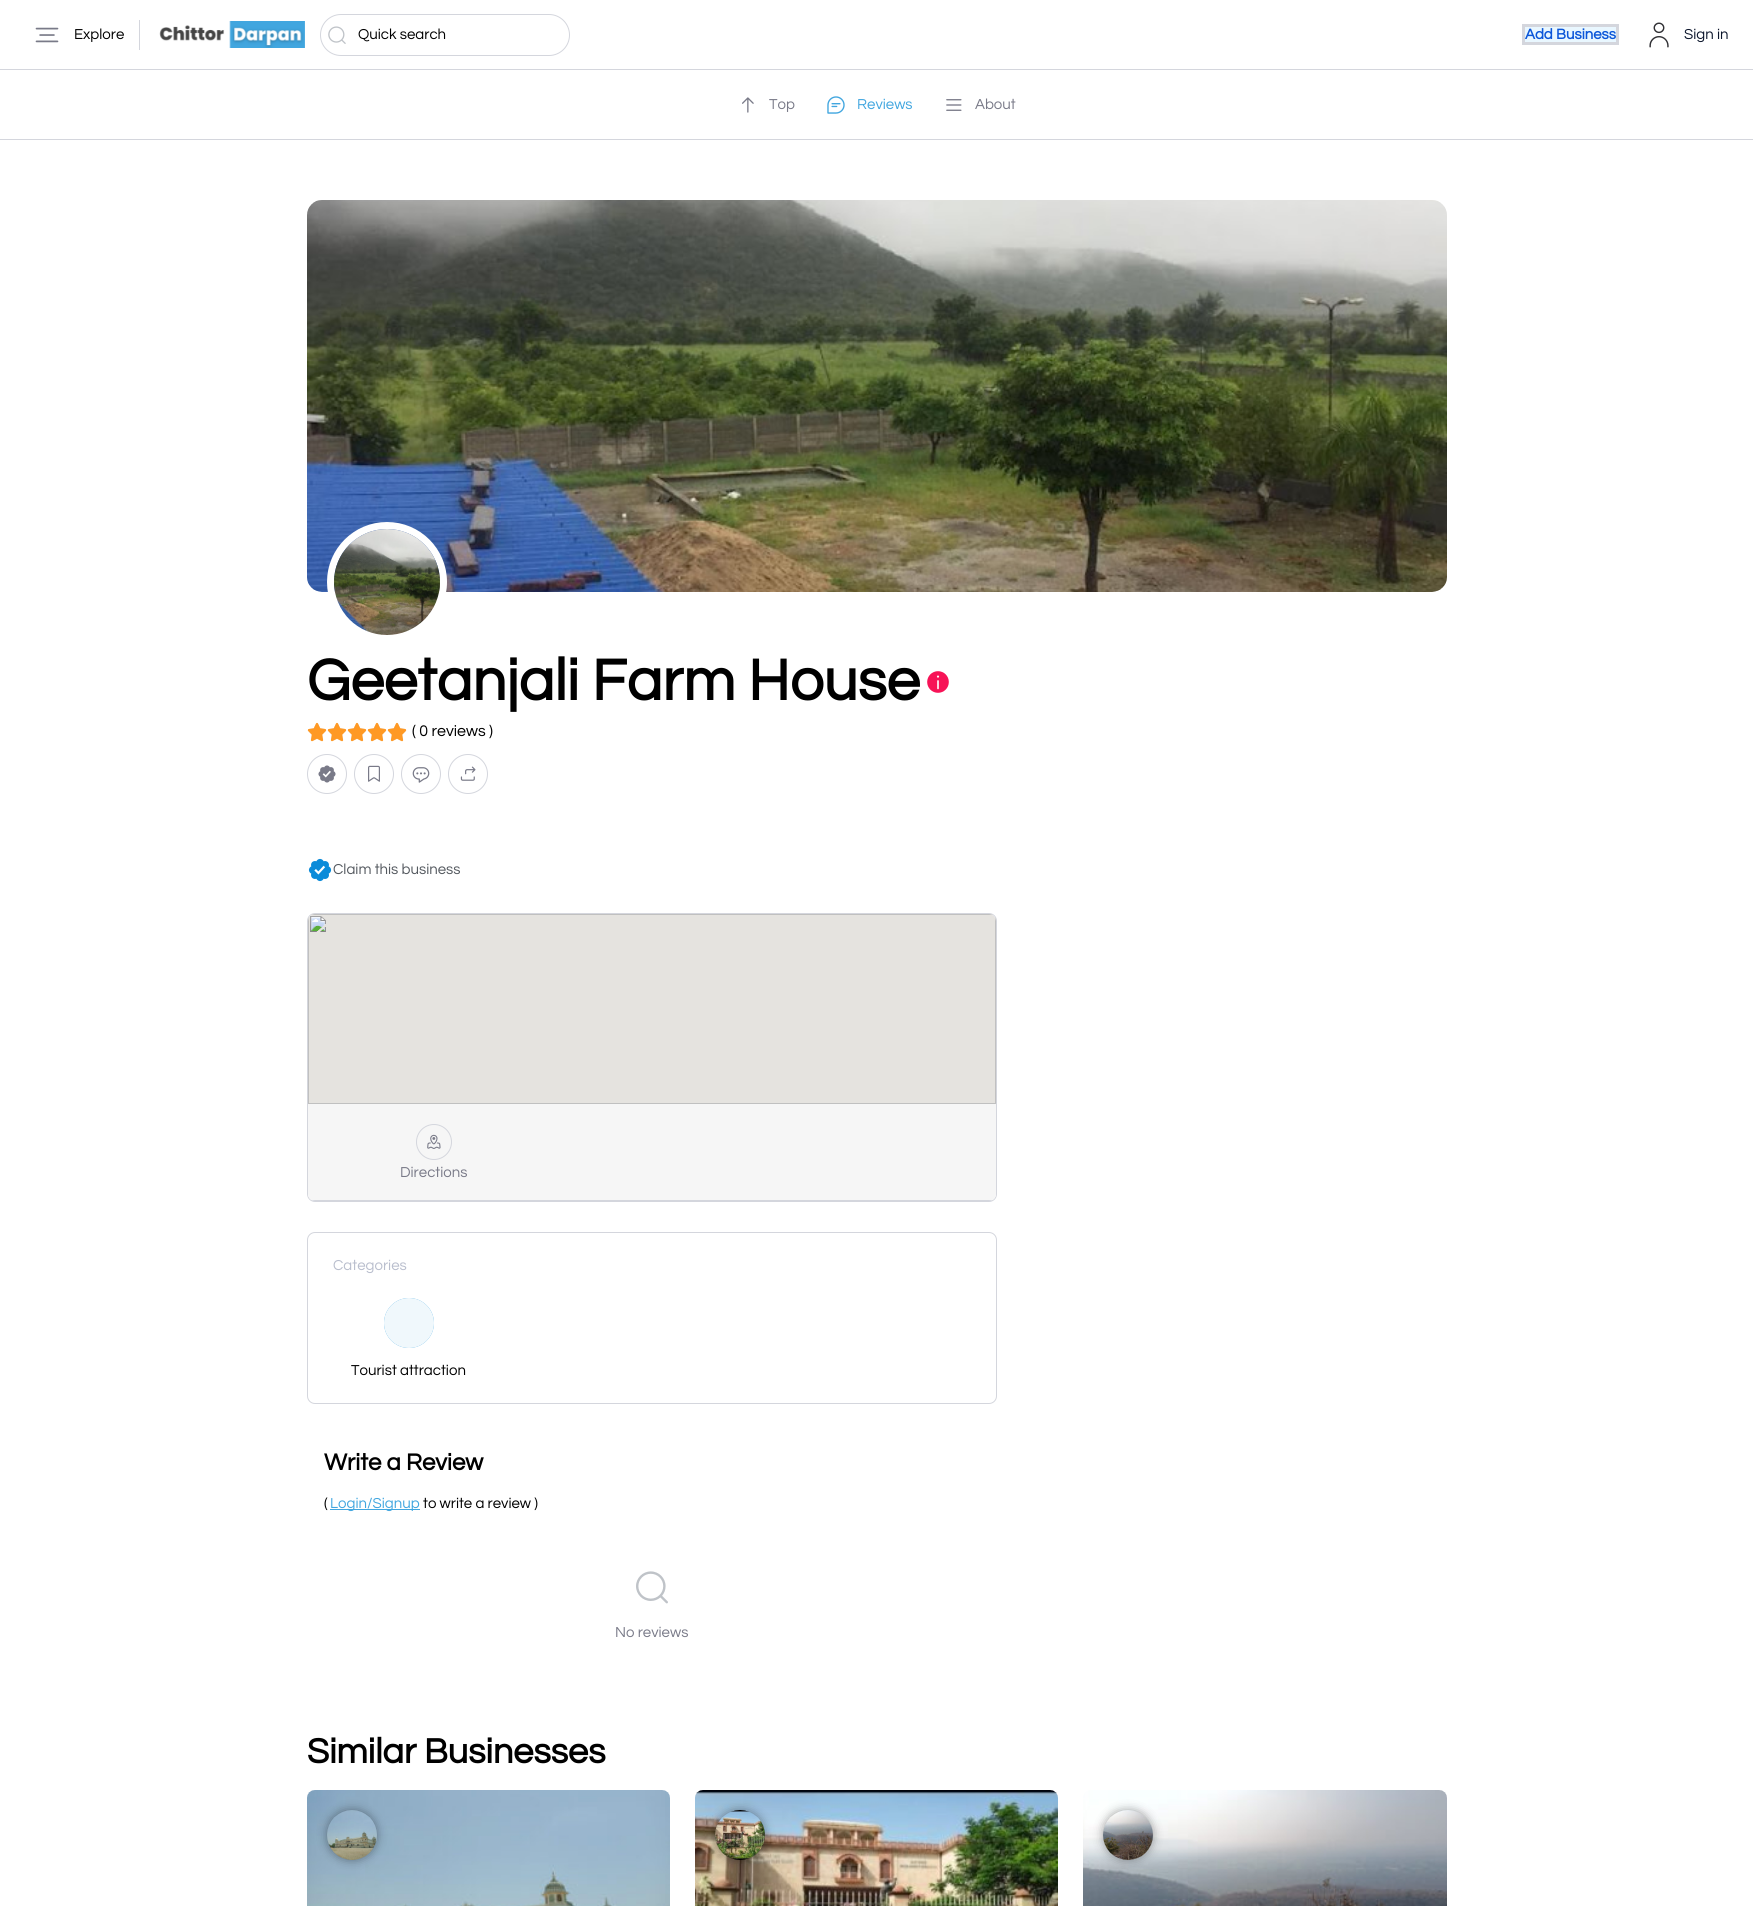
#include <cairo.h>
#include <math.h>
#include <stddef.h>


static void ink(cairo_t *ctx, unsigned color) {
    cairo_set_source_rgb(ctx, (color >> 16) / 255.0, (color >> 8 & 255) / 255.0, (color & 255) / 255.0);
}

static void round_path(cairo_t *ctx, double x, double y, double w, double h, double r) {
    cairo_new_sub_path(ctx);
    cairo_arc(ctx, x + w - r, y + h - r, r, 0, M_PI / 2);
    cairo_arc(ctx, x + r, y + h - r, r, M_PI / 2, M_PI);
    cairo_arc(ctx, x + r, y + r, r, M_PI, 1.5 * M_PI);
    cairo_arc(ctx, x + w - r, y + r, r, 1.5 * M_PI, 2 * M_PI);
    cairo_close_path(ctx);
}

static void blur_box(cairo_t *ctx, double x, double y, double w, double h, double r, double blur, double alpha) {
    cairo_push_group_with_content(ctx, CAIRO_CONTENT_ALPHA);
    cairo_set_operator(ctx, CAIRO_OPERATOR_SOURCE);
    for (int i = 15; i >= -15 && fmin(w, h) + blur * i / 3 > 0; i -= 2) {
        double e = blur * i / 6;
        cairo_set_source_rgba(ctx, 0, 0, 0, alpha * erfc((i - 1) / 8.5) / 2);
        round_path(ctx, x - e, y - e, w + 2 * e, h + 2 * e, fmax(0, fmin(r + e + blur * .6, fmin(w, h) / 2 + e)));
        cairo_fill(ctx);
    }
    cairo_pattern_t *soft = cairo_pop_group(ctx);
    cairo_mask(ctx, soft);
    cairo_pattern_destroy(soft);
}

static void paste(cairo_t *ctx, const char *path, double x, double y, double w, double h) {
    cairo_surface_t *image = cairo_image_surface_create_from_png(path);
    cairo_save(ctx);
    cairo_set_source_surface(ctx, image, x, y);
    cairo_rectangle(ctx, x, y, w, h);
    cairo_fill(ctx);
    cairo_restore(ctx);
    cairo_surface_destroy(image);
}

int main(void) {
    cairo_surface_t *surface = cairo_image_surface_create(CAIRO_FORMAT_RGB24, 1753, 1906);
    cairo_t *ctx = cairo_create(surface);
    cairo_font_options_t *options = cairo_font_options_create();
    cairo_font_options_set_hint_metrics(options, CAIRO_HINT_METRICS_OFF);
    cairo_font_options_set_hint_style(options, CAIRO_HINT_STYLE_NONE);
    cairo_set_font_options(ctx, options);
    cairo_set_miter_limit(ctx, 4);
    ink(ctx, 0xFFFFFF);
    cairo_paint(ctx);
    ink(ctx, 0xD4D6DD);
    cairo_rectangle(ctx, 0, 69, 1753, 1);
    cairo_fill(ctx);
    paste(ctx, "media/1.png", 35, 27, 24, 16);
    cairo_select_font_face(ctx, "Questrial", CAIRO_FONT_SLANT_NORMAL, CAIRO_FONT_WEIGHT_NORMAL);
    cairo_set_font_size(ctx, 15);
    ink(ctx, 0x000000);
    cairo_move_to(ctx, 74, 39);
    cairo_show_text(ctx, "Explore");
    ink(ctx, 0xD4D6DD);
    cairo_rectangle(ctx, 139, 20, 1, 30);
    cairo_fill(ctx);
    paste(ctx, "media/2.png", 159, 21, 146, 27);
    round_path(ctx, 320.5, 14.5, 249, 41, 20.5);
    cairo_set_line_width(ctx, 1);
    cairo_stroke(ctx);
    paste(ctx, "media/3.png", 328, 26, 18, 18);
    ink(ctx, 0x000000);
    cairo_move_to(ctx, 358, 39);
    cairo_show_text(ctx, "Quick search");
    ink(ctx, 0xE9F7FF);
    cairo_rectangle(ctx, 1523.5, 25.5, 94, 18);
    cairo_fill_preserve(ctx);
    ink(ctx, 0xD4D6DD);
    cairo_set_line_width(ctx, 3);
    cairo_stroke(ctx);
    cairo_select_font_face(ctx, "Questrial", CAIRO_FONT_SLANT_NORMAL, CAIRO_FONT_WEIGHT_BOLD);
    ink(ctx, 0x0B56D9);
    cairo_move_to(ctx, 1525, 39);
    cairo_show_text(ctx, "Add Business");
    paste(ctx, "media/4.png", 1649, 22, 20, 26);
    cairo_select_font_face(ctx, "Questrial", CAIRO_FONT_SLANT_NORMAL, CAIRO_FONT_WEIGHT_NORMAL);
    ink(ctx, 0x0C162C);
    cairo_move_to(ctx, 1684, 39);
    cairo_show_text(ctx, "Sign in");
    ink(ctx, 0xD4D6DD);
    cairo_rectangle(ctx, 0, 139, 1753, 1);
    cairo_fill(ctx);
    paste(ctx, "media/5.png", 742, 97, 12, 16);
    ink(ctx, 0x797A88);
    cairo_move_to(ctx, 769, 109);
    cairo_show_text(ctx, "Top");
    paste(ctx, "media/6.png", 827, 96, 18, 18);
    ink(ctx, 0x41A6DF);
    cairo_move_to(ctx, 857, 109);
    cairo_show_text(ctx, "Reviews");
    paste(ctx, "media/7.png", 946, 99, 16, 12);
    ink(ctx, 0x797A88);
    cairo_move_to(ctx, 975, 109);
    cairo_show_text(ctx, "About");
    paste(ctx, "media/8.png", 307, 200, 1140, 392);
    cairo_arc(ctx, 387, 582, 56.5, 0, 2 * M_PI);
    ink(ctx, 0xFFFFFF);
    cairo_set_line_width(ctx, 7);
    cairo_stroke(ctx);
    paste(ctx, "media/9.png", 334, 529, 106, 106);
    cairo_select_font_face(ctx, "Questrial", CAIRO_FONT_SLANT_NORMAL, CAIRO_FONT_WEIGHT_BOLD);
    cairo_set_font_size(ctx, 60);
    ink(ctx, 0x000000);
    cairo_move_to(ctx, 307, 700);
    cairo_show_text(ctx, "Geetanjali Farm House");
    paste(ctx, "media/10.png", 927, 671, 22, 22);
    paste(ctx, "media/12.png", 308, 723, 18, 18);
    paste(ctx, "media/11.png", 307, 722, 20, 20);
    paste(ctx, "media/12.png", 328, 723, 18, 18);
    paste(ctx, "media/11.png", 327, 722, 20, 20);
    paste(ctx, "media/12.png", 348, 723, 18, 18);
    paste(ctx, "media/11.png", 347, 722, 20, 20);
    paste(ctx, "media/12.png", 368, 723, 18, 18);
    paste(ctx, "media/11.png", 367, 722, 20, 20);
    paste(ctx, "media/12.png", 388, 723, 18, 18);
    paste(ctx, "media/11.png", 387, 722, 20, 20);
    cairo_select_font_face(ctx, "Questrial", CAIRO_FONT_SLANT_NORMAL, CAIRO_FONT_WEIGHT_NORMAL);
    cairo_set_font_size(ctx, 16);
    cairo_move_to(ctx, 412, 736);
    cairo_show_text(ctx, "( 0 reviews )");
    cairo_new_path(ctx);
    cairo_arc(ctx, 327, 774, 19.5, 0, 2 * M_PI);
    ink(ctx, 0xD4D6DD);
    cairo_set_line_width(ctx, 1);
    cairo_stroke(ctx);
    paste(ctx, "media/13.png", 318, 765, 18, 18);
    cairo_arc(ctx, 374, 774, 19.5, 0, 2 * M_PI);
    cairo_stroke(ctx);
    paste(ctx, "media/14.png", 368, 765, 12, 17);
    cairo_arc(ctx, 421, 774, 19.5, 0, 2 * M_PI);
    cairo_stroke(ctx);
    paste(ctx, "media/15.png", 412, 767, 18, 16);
    cairo_arc(ctx, 468, 774, 19.5, 0, 2 * M_PI);
    cairo_stroke(ctx);
    paste(ctx, "media/16.png", 460, 766, 16, 15);
    paste(ctx, "media/17.png", 308, 858, 24, 24);
    cairo_set_font_size(ctx, 15);
    ink(ctx, 0x54595F);
    cairo_move_to(ctx, 333, 874);
    cairo_show_text(ctx, "Claim this business");
    round_path(ctx, 307.5, 913.5, 689, 288, 7.5);
    ink(ctx, 0xD4D6DD);
    cairo_stroke(ctx);
    paste(ctx, "media/18.png", 308, 914, 688, 190);
    cairo_save(ctx);
    round_path(ctx, 308, 914, 688, 287, 7);
    cairo_clip(ctx);
    ink(ctx, 0xF6F6F6);
    cairo_rectangle(ctx, 308, 1104, 688, 96);
    cairo_fill(ctx);
    ink(ctx, 0xD4D6DD);
    cairo_rectangle(ctx, 308, 1200, 688, 1);
    cairo_fill(ctx);
    cairo_restore(ctx);
    cairo_arc(ctx, 434, 1142, 17.5, 0, 2 * M_PI);
    cairo_stroke(ctx);
    paste(ctx, "media/19.png", 427, 1134, 14, 15);
    ink(ctx, 0x797A88);
    cairo_move_to(ctx, 400, 1177);
    cairo_show_text(ctx, "Directions");
    round_path(ctx, 307.5, 1232.5, 689, 171, 7.5);
    ink(ctx, 0xD4D6DD);
    cairo_stroke(ctx);
    ink(ctx, 0xB9BECD);
    cairo_move_to(ctx, 333, 1270);
    cairo_show_text(ctx, "Categories");
    ink(ctx, 0x41A6DF);
    cairo_new_path(ctx);
    cairo_arc(ctx, 409, 1323, 25, 0, 2 * M_PI);
    cairo_fill(ctx);
    cairo_set_source_rgba(ctx, 1, 1, 1, 0.92);
    cairo_arc(ctx, 409, 1323, 25, 0, 2 * M_PI);
    cairo_fill(ctx);
    ink(ctx, 0x000000);
    cairo_move_to(ctx, 351, 1375);
    cairo_show_text(ctx, "Tourist attraction");
    cairo_select_font_face(ctx, "Questrial", CAIRO_FONT_SLANT_NORMAL, CAIRO_FONT_WEIGHT_BOLD);
    cairo_set_font_size(ctx, 24);
    cairo_move_to(ctx, 324, 1470);
    cairo_show_text(ctx, "Write a Review");
    cairo_select_font_face(ctx, "Questrial", CAIRO_FONT_SLANT_NORMAL, CAIRO_FONT_WEIGHT_NORMAL);
    cairo_set_font_size(ctx, 15);
    cairo_move_to(ctx, 324, 1508);
    cairo_show_text(ctx, "(");
    ink(ctx, 0x41A6DF);
    cairo_rectangle(ctx, 330, 1509, 90, 1);
    cairo_fill(ctx);
    cairo_move_to(ctx, 330, 1508);
    cairo_show_text(ctx, "Login/Signup");
    ink(ctx, 0x000000);
    cairo_move_to(ctx, 423, 1508);
    cairo_show_text(ctx, "to write a review )");
    paste(ctx, "media/20.png", 636, 1571, 32, 33);
    ink(ctx, 0x797A88);
    cairo_move_to(ctx, 615, 1637);
    cairo_show_text(ctx, "No reviews");
    cairo_select_font_face(ctx, "Questrial", CAIRO_FONT_SLANT_NORMAL, CAIRO_FONT_WEIGHT_BOLD);
    cairo_set_font_size(ctx, 36);
    ink(ctx, 0x000000);
    cairo_move_to(ctx, 307, 1763);
    cairo_show_text(ctx, "Similar Businesses");
    paste(ctx, "media/21.png", 307, 1790, 363, 116);
    ink(ctx, 0x000000);
    blur_box(ctx, 327, 1810, 50, 50, 25, 5, 0.36);
    paste(ctx, "media/22.png", 327, 1810, 50, 50);
    paste(ctx, "media/23.png", 695, 1790, 363, 116);
    blur_box(ctx, 715, 1810, 50, 50, 25, 5, 0.36);
    paste(ctx, "media/24.png", 715, 1810, 50, 50);
    paste(ctx, "media/25.png", 1083, 1790, 364, 116);
    blur_box(ctx, 1103, 1810, 50, 50, 25, 5, 0.36);
    paste(ctx, "media/26.png", 1103, 1810, 50, 50);
    cairo_surface_write_to_png(surface, "image.png");
    cairo_font_options_destroy(options);
    cairo_destroy(ctx);
    cairo_surface_destroy(surface);
    return 0;
}
